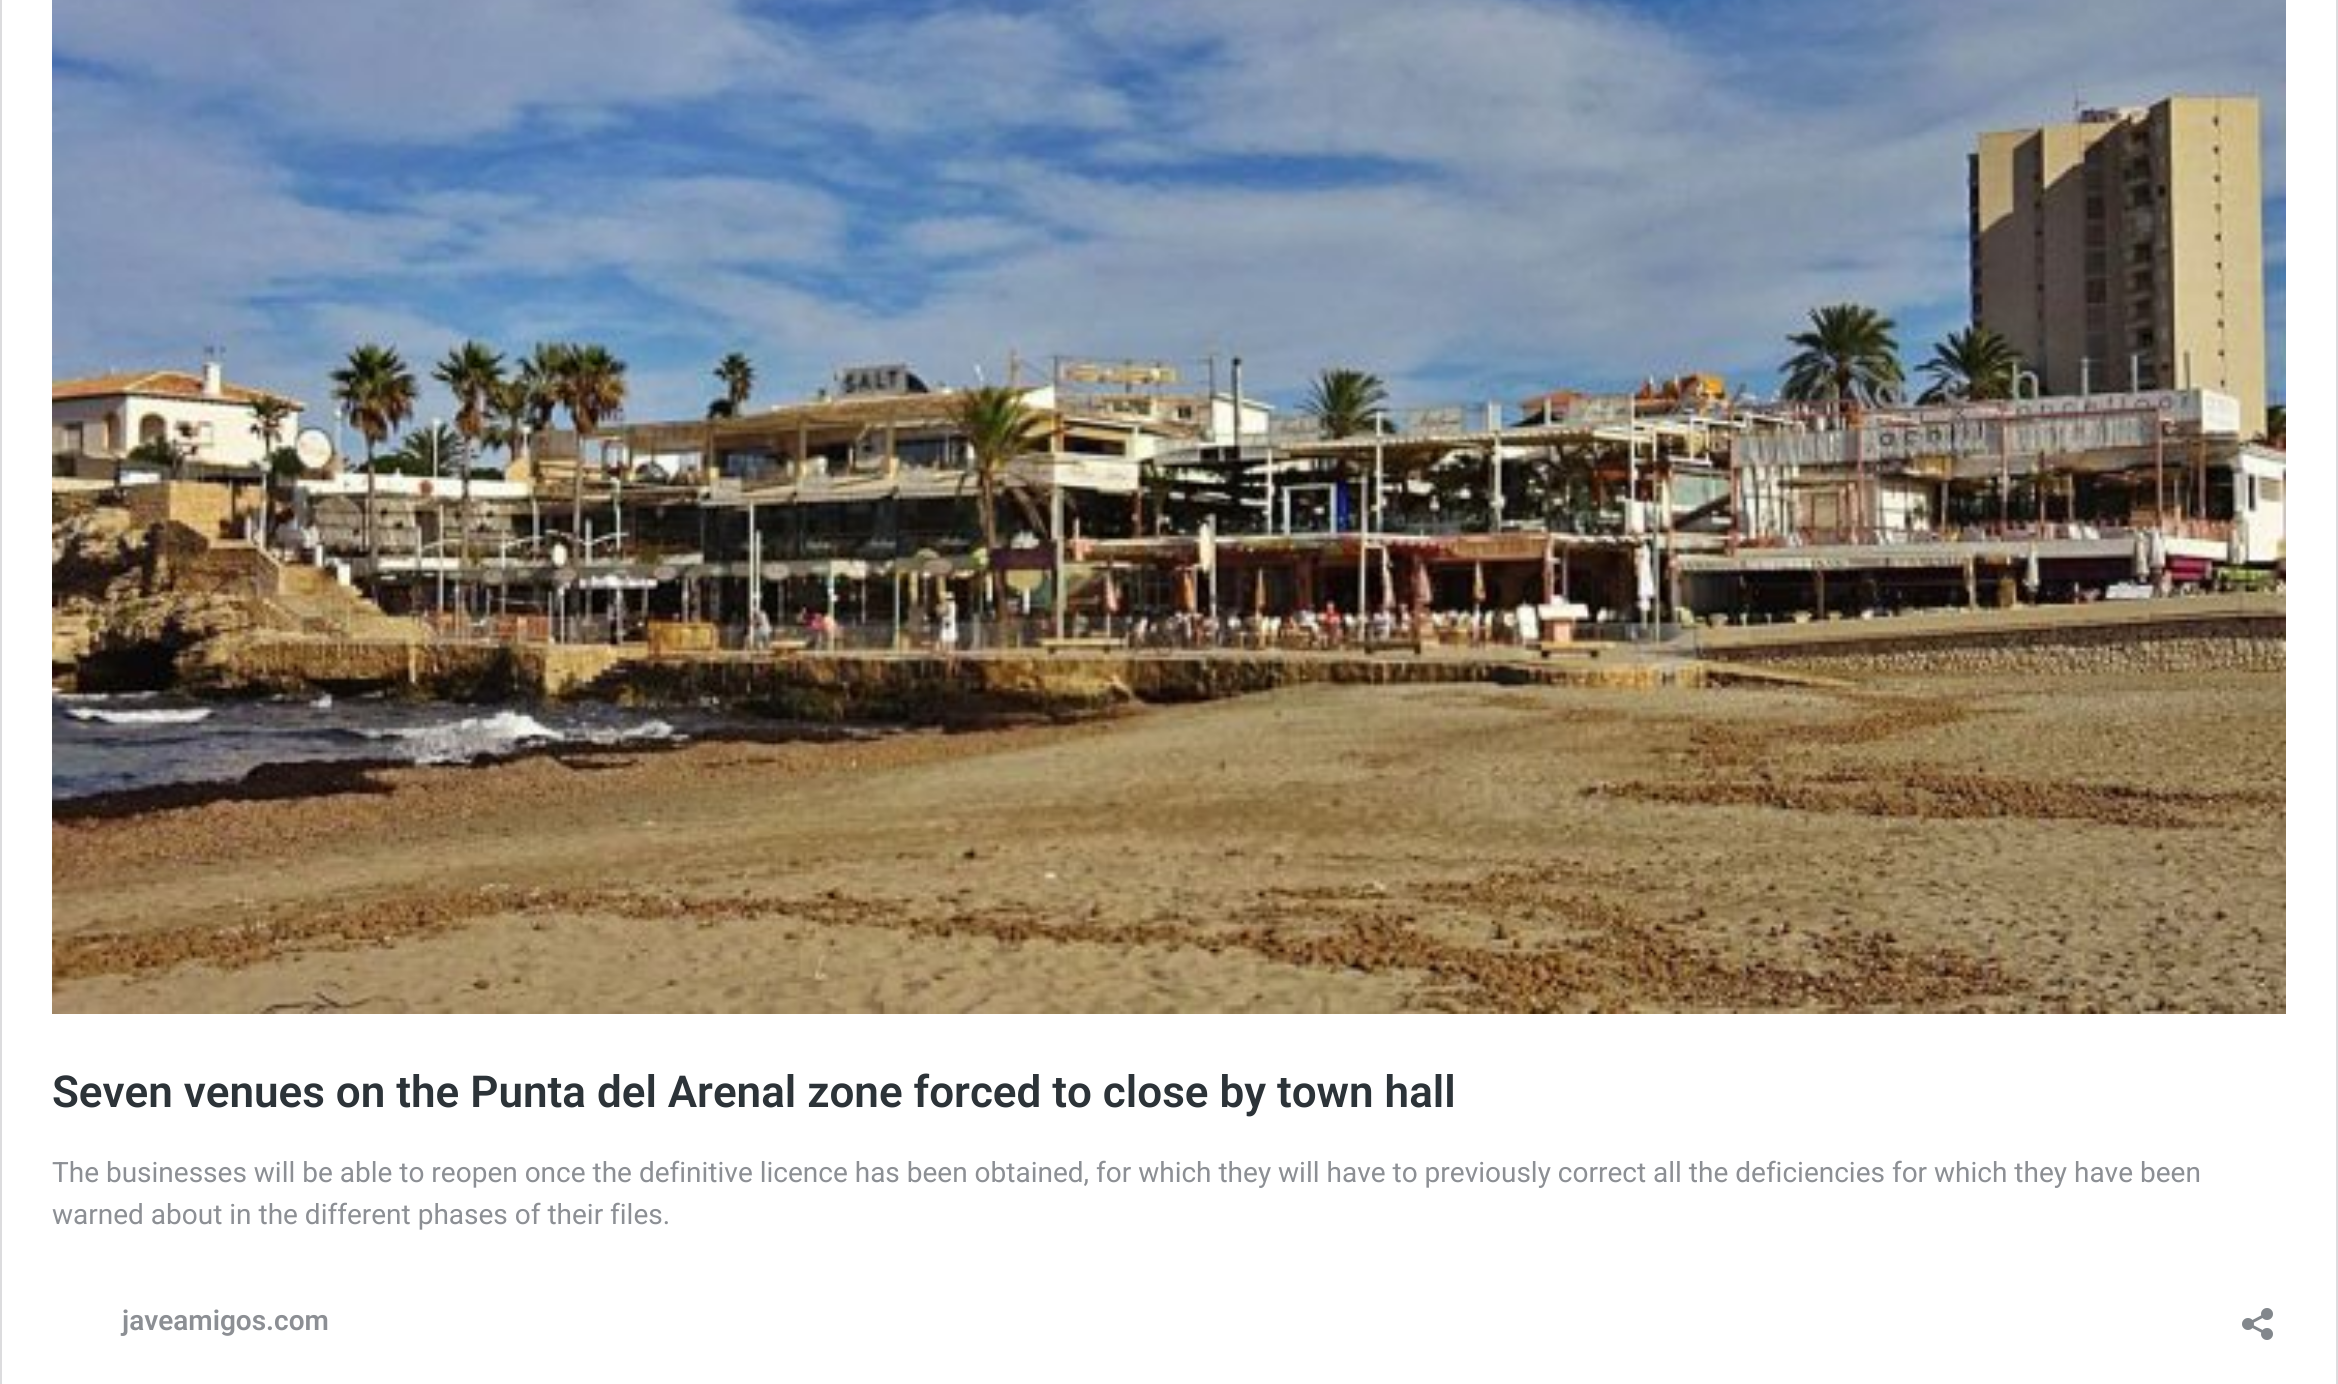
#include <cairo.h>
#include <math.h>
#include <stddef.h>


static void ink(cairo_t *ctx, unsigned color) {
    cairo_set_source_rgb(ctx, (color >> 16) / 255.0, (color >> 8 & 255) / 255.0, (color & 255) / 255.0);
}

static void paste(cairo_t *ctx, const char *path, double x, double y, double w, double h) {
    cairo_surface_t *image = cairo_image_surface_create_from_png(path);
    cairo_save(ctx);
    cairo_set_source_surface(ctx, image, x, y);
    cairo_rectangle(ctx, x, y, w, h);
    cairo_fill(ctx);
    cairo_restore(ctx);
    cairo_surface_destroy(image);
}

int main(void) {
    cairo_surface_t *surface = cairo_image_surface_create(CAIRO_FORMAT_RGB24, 2338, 1384);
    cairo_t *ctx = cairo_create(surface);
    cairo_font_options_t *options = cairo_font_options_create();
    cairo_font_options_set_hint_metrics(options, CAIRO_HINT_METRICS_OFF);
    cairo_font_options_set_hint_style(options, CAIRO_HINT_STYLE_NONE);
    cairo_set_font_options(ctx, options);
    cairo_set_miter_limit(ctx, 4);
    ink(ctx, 0xFFFFFF);
    cairo_paint(ctx);
    cairo_rectangle(ctx, 1, -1, 2336, 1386);
    ink(ctx, 0xDCDCDE);
    cairo_stroke(ctx);
    paste(ctx, "media/1.png", 52, 0, 2234, 1014);
    cairo_select_font_face(ctx, "Roboto SemiBold", CAIRO_FONT_SLANT_NORMAL, CAIRO_FONT_WEIGHT_NORMAL);
    cairo_set_font_size(ctx, 44);
    ink(ctx, 0x2C3338);
    cairo_move_to(ctx, 52, 1107);
    cairo_show_text(ctx, "Seven venues on the Punta del Arenal zone forced to close by town hall");
    cairo_select_font_face(ctx, "Roboto", CAIRO_FONT_SLANT_NORMAL, CAIRO_FONT_WEIGHT_NORMAL);
    cairo_set_font_size(ctx, 28);
    ink(ctx, 0x8C8F94);
    cairo_move_to(ctx, 52, 1182);
    cairo_show_text(ctx, "The businesses will be able to reopen once the definitive licence has been obtained, for which they will have to previously correct all the deficiencies for which they have been");
    cairo_move_to(ctx, 52, 1224);
    cairo_show_text(ctx, "warned about in the different phases of their files.");
    cairo_select_font_face(ctx, "Roboto SemiBold", CAIRO_FONT_SLANT_NORMAL, CAIRO_FONT_WEIGHT_NORMAL);
    cairo_move_to(ctx, 122, 1330);
    cairo_show_text(ctx, "javeamigos.com");
    paste(ctx, "media/2.png", 2242, 1308, 31, 32);
    cairo_surface_write_to_png(surface, "image.png");
    cairo_font_options_destroy(options);
    cairo_destroy(ctx);
    cairo_surface_destroy(surface);
    return 0;
}
